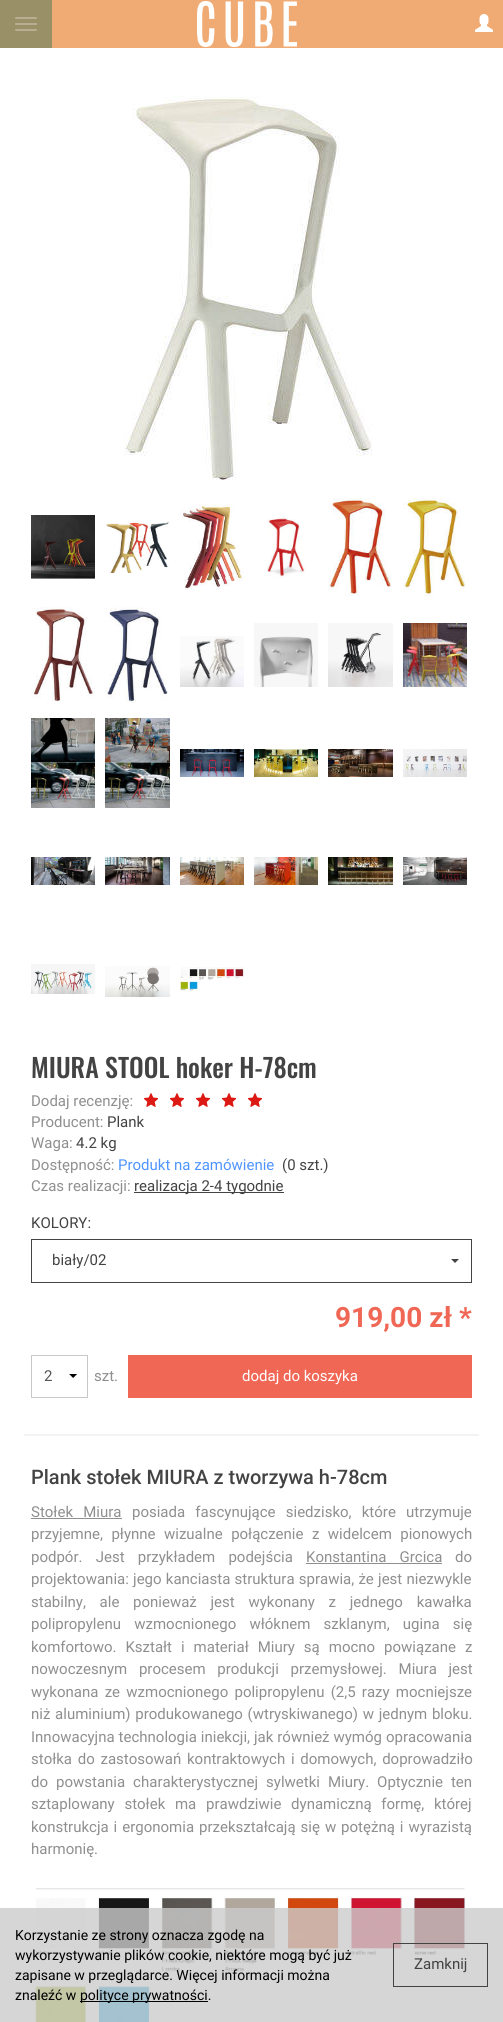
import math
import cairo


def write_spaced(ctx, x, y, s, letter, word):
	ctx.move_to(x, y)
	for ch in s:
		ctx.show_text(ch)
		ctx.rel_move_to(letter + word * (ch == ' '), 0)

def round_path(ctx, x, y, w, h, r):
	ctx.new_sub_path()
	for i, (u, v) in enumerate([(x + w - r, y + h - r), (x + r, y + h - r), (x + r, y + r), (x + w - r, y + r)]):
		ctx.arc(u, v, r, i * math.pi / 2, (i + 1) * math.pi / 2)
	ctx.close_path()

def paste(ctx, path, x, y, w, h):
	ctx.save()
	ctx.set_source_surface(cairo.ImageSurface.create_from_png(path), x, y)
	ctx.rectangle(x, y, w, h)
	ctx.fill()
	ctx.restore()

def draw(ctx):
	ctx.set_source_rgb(1, 1, 1)
	ctx.paint()
	ctx.set_source_rgb(0.941, 0.667, 0.455)
	ctx.rectangle(52, 0, 451, 48)
	ctx.fill()
	ctx.set_source_rgb(0.604, 0.565, 0.404)
	ctx.rectangle(0, 0, 52, 48)
	ctx.fill()
	ctx.set_source_rgb(0.714, 0.686, 0.569)
	round_path(ctx, 15, 17, 22, 2, 1)
	ctx.fill()
	round_path(ctx, 15, 23, 22, 2, 1)
	ctx.fill()
	round_path(ctx, 15, 29, 22, 2, 1)
	ctx.fill()
	paste(ctx, 'media/1.png', 197, 1, 100, 46)
	paste(ctx, 'media/2.png', 475, 14, 18, 18)
	paste(ctx, 'media/3.png', 124, 96, 248, 384)
	paste(ctx, 'media/4.png', 31, 515, 64, 64)
	paste(ctx, 'media/5.png', 105, 521, 64, 52)
	paste(ctx, 'media/6.png', 180, 504, 64, 86)
	paste(ctx, 'media/7.png', 267, 516, 39, 62)
	paste(ctx, 'media/8.png', 328, 498, 63, 98)
	paste(ctx, 'media/9.png', 403, 498, 62, 98)
	paste(ctx, 'media/10.png', 31, 607, 64, 95)
	paste(ctx, 'media/11.png', 105, 607, 63, 96)
	paste(ctx, 'media/12.png', 180, 636, 64, 51)
	paste(ctx, 'media/13.png', 254, 623, 64, 64)
	paste(ctx, 'media/14.png', 328, 623, 65, 64)
	paste(ctx, 'media/15.png', 403, 623, 64, 64)
	paste(ctx, 'media/16.png', 31, 718, 64, 90)
	paste(ctx, 'media/17.png', 105, 718, 65, 90)
	paste(ctx, 'media/18.png', 180, 749, 64, 28)
	paste(ctx, 'media/19.png', 254, 749, 64, 28)
	paste(ctx, 'media/20.png', 328, 749, 65, 28)
	paste(ctx, 'media/21.png', 403, 749, 64, 28)
	paste(ctx, 'media/22.png', 31, 857, 64, 28)
	paste(ctx, 'media/23.png', 105, 857, 65, 28)
	paste(ctx, 'media/24.png', 180, 857, 64, 28)
	paste(ctx, 'media/25.png', 254, 857, 64, 28)
	paste(ctx, 'media/26.png', 328, 857, 65, 28)
	paste(ctx, 'media/27.png', 403, 857, 64, 28)
	paste(ctx, 'media/28.png', 31, 964, 64, 30)
	paste(ctx, 'media/29.png', 105, 966, 65, 31)
	paste(ctx, 'media/30.png', 180, 967, 64, 24)
	ctx.select_font_face('Oswald Medium')
	ctx.set_font_size(26)
	ctx.set_source_rgb(0.263, 0.263, 0.263)
	ctx.move_to(31, 1078)
	ctx.show_text('MIURA STOOL hoker H-78cm')
	ctx.select_font_face('Roboto')
	ctx.set_font_size(15)
	ctx.set_source_rgb(0.561, 0.561, 0.561)
	ctx.move_to(31, 1106)
	ctx.show_text('Dodaj recenzję:')
	paste(ctx, 'media/31.png', 144, 1093, 14, 14)
	paste(ctx, 'media/31.png', 170, 1093, 14, 14)
	paste(ctx, 'media/31.png', 196, 1093, 14, 14)
	paste(ctx, 'media/31.png', 222, 1093, 14, 14)
	paste(ctx, 'media/31.png', 248, 1093, 14, 14)
	ctx.move_to(31, 1127)
	ctx.show_text('Producent:')
	ctx.set_source_rgb(0.263, 0.263, 0.263)
	ctx.move_to(107, 1127)
	ctx.show_text('Plank')
	ctx.set_source_rgb(0.561, 0.561, 0.561)
	ctx.move_to(31, 1148)
	ctx.show_text('Waga:')
	ctx.set_source_rgb(0.263, 0.263, 0.263)
	ctx.move_to(76, 1148)
	ctx.show_text('4.2 kg')
	ctx.set_source_rgb(0.561, 0.561, 0.561)
	ctx.move_to(31, 1170)
	ctx.show_text('Dostępność:')
	ctx.set_source_rgb(0.31, 0.584, 1)
	ctx.move_to(118, 1170)
	ctx.show_text('Produkt na zamówienie')
	ctx.set_source_rgb(0.263, 0.263, 0.263)
	ctx.move_to(282, 1170)
	ctx.show_text('(0 szt.)')
	ctx.set_source_rgb(0.561, 0.561, 0.561)
	ctx.move_to(31, 1191)
	ctx.show_text('Czas realizacji:')
	ctx.set_source_rgb(0.263, 0.263, 0.263)
	ctx.rectangle(134, 1192, 150, 1)
	ctx.fill()
	ctx.move_to(134, 1191)
	ctx.show_text('realizacja 2-4 tygodnie')
	ctx.move_to(31, 1228)
	ctx.show_text('KOLORY:')
	ctx.rectangle(31.5, 1239.5, 440, 43)
	ctx.set_line_width(1)
	ctx.stroke()
	ctx.move_to(52, 1265)
	ctx.show_text('biały/02')
	ctx.new_path()
	ctx.move_to(451, 1259)
	ctx.line_to(459, 1259)
	ctx.line_to(455, 1263)
	ctx.close_path()
	ctx.fill()
	ctx.select_font_face('Roboto', cairo.FONT_SLANT_NORMAL, cairo.FONT_WEIGHT_BOLD)
	ctx.set_font_size(28)
	ctx.set_source_rgb(0.941, 0.404, 0.333)
	ctx.move_to(335, 1327)
	ctx.show_text('919,00 zł *')
	paste(ctx, 'media/32.png', 69, 1374, 8, 4)
	ctx.rectangle(31.5, 1355.5, 56, 42)
	ctx.set_source_rgb(0.784, 0.784, 0.784)
	ctx.stroke()
	ctx.select_font_face('Roboto')
	ctx.set_font_size(15)
	ctx.set_source_rgb(0.333, 0.333, 0.333)
	ctx.move_to(44, 1381)
	ctx.show_text('2')
	ctx.set_source_rgb(0.561, 0.561, 0.561)
	ctx.move_to(94, 1381)
	ctx.show_text('szt.')
	ctx.set_source_rgb(0.941, 0.404, 0.333)
	ctx.rectangle(128, 1355, 344, 43)
	ctx.fill()
	ctx.set_source_rgb(1, 1, 1)
	ctx.move_to(242, 1381)
	ctx.show_text('dodaj do koszyka')
	ctx.set_source_rgb(0.953, 0.953, 0.949)
	ctx.rectangle(24, 1434, 455, 2)
	ctx.fill()
	ctx.select_font_face('Roboto Medium')
	ctx.set_font_size(20)
	ctx.set_source_rgb(0.263, 0.263, 0.263)
	ctx.move_to(31, 1484)
	ctx.show_text('Plank stołek MIURA z tworzywa h-78cm')
	ctx.select_font_face('Roboto')
	ctx.set_font_size(15)
	ctx.set_source_rgb(0.561, 0.561, 0.561)
	write_spaced(ctx, 31, 1517, 'Stołek Miura', 0, 6.5)
	ctx.rectangle(31, 1518, 91, 1)
	ctx.fill()
	write_spaced(ctx, 132, 1517, 'posiada fascynujące siedzisko, które utrzymuje', 0, 6.5)
	write_spaced(ctx, 31, 1539, 'przyjemne, płynne wizualne połączenie z widelcem pionowych', 0, 4.75)
	write_spaced(ctx, 31, 1562, 'podpór. Jest przykładem podejścia', 0, 9.5)
	write_spaced(ctx, 306, 1562, 'Konstantina Grcica', 0, 9.5)
	ctx.rectangle(306, 1563, 136, 1)
	ctx.fill()
	ctx.move_to(455, 1562)
	ctx.show_text('do')
	write_spaced(ctx, 31, 1584, 'projektowania: jego kanciasta struktura sprawia, że jest niezwykle', 0, 0.5)
	write_spaced(ctx, 31, 1607, 'stabilny, ale ponieważ jest wykonany z jednego kawałka', 0, 10)
	write_spaced(ctx, 31, 1629, 'polipropylenu wzmocnionego włóknem szklanym, ugina się', 0, 9.5)
	write_spaced(ctx, 31, 1652, 'komfortowo. Kształt i materiał Miury są mocno powiązane z', 0, 5.25)
	write_spaced(ctx, 31, 1674, 'nowoczesnym procesem produkcji przemysłowej. Miura jest', 0, 8)
	write_spaced(ctx, 31, 1697, 'wykonana ze wzmocnionego polipropylenu (2,5 razy mocniejsze', 0, 2.5)
	write_spaced(ctx, 31, 1719, 'niż aluminium) produkowanego (wtryskiwanego) w jednym bloku.', 0, 1)
	write_spaced(ctx, 31, 1742, 'Innowacyjna technologia iniekcji, jak również wymóg opracowania', 0, 0.25)
	write_spaced(ctx, 31, 1764, 'stołka do zastosowań kontraktowych i domowych, doprowadziło', 0, 2)
	write_spaced(ctx, 31, 1787, 'do powstania charakterystycznej sylwetki Miury. Optycznie ten', 0, 4.25)
	write_spaced(ctx, 31, 1809, 'sztaplowany stołek ma prawdziwie dynamiczną formę, której', 0, 6)
	write_spaced(ctx, 31, 1832, 'konstrukcja i ergonomia przekształcają się w potężną i wyrazistą', 0, 1.25)
	ctx.move_to(31, 1854)
	ctx.show_text('harmonię.')
	paste(ctx, 'media/33.png', 31, 1888, 434, 134)
	ctx.set_source_rgba(0.8, 0.8, 0.8, 0.8)
	ctx.rectangle(0, 1908, 503, 114)
	ctx.fill()
	ctx.set_font_size(14)
	ctx.set_source_rgb(0, 0, 0)
	for x, y, s in [
		(15, 1940, 'Korzystanie ze strony oznacza zgodę na'),
		(15, 1960, 'wykorzystywanie plików cookie, niektóre mogą być już'),
		(15, 1980, 'zapisane w przeglądarce. Więcej informacji można'),
		(15, 2000, 'znaleźć w'),
	]:
		ctx.move_to(x, y)
		ctx.show_text(s)
	ctx.rectangle(80, 2001, 128, 1)
	ctx.fill()
	ctx.move_to(80, 2000)
	ctx.show_text('polityce prywatności.')
	ctx.rectangle(393.5, 1943.5, 94, 43)
	ctx.set_source_rgb(0.263, 0.263, 0.263)
	ctx.stroke()
	ctx.set_font_size(15)
	ctx.move_to(414, 1969)
	ctx.show_text('Zamknij')


surface = cairo.ImageSurface(cairo.FORMAT_RGB24, 503, 2022)
ctx = cairo.Context(surface)
options = cairo.FontOptions()
options.set_hint_metrics(cairo.HINT_METRICS_OFF)
options.set_hint_style(cairo.HINT_STYLE_NONE)
ctx.set_font_options(options)
ctx.set_miter_limit(4)
draw(ctx)
surface.write_to_png('image.png')
